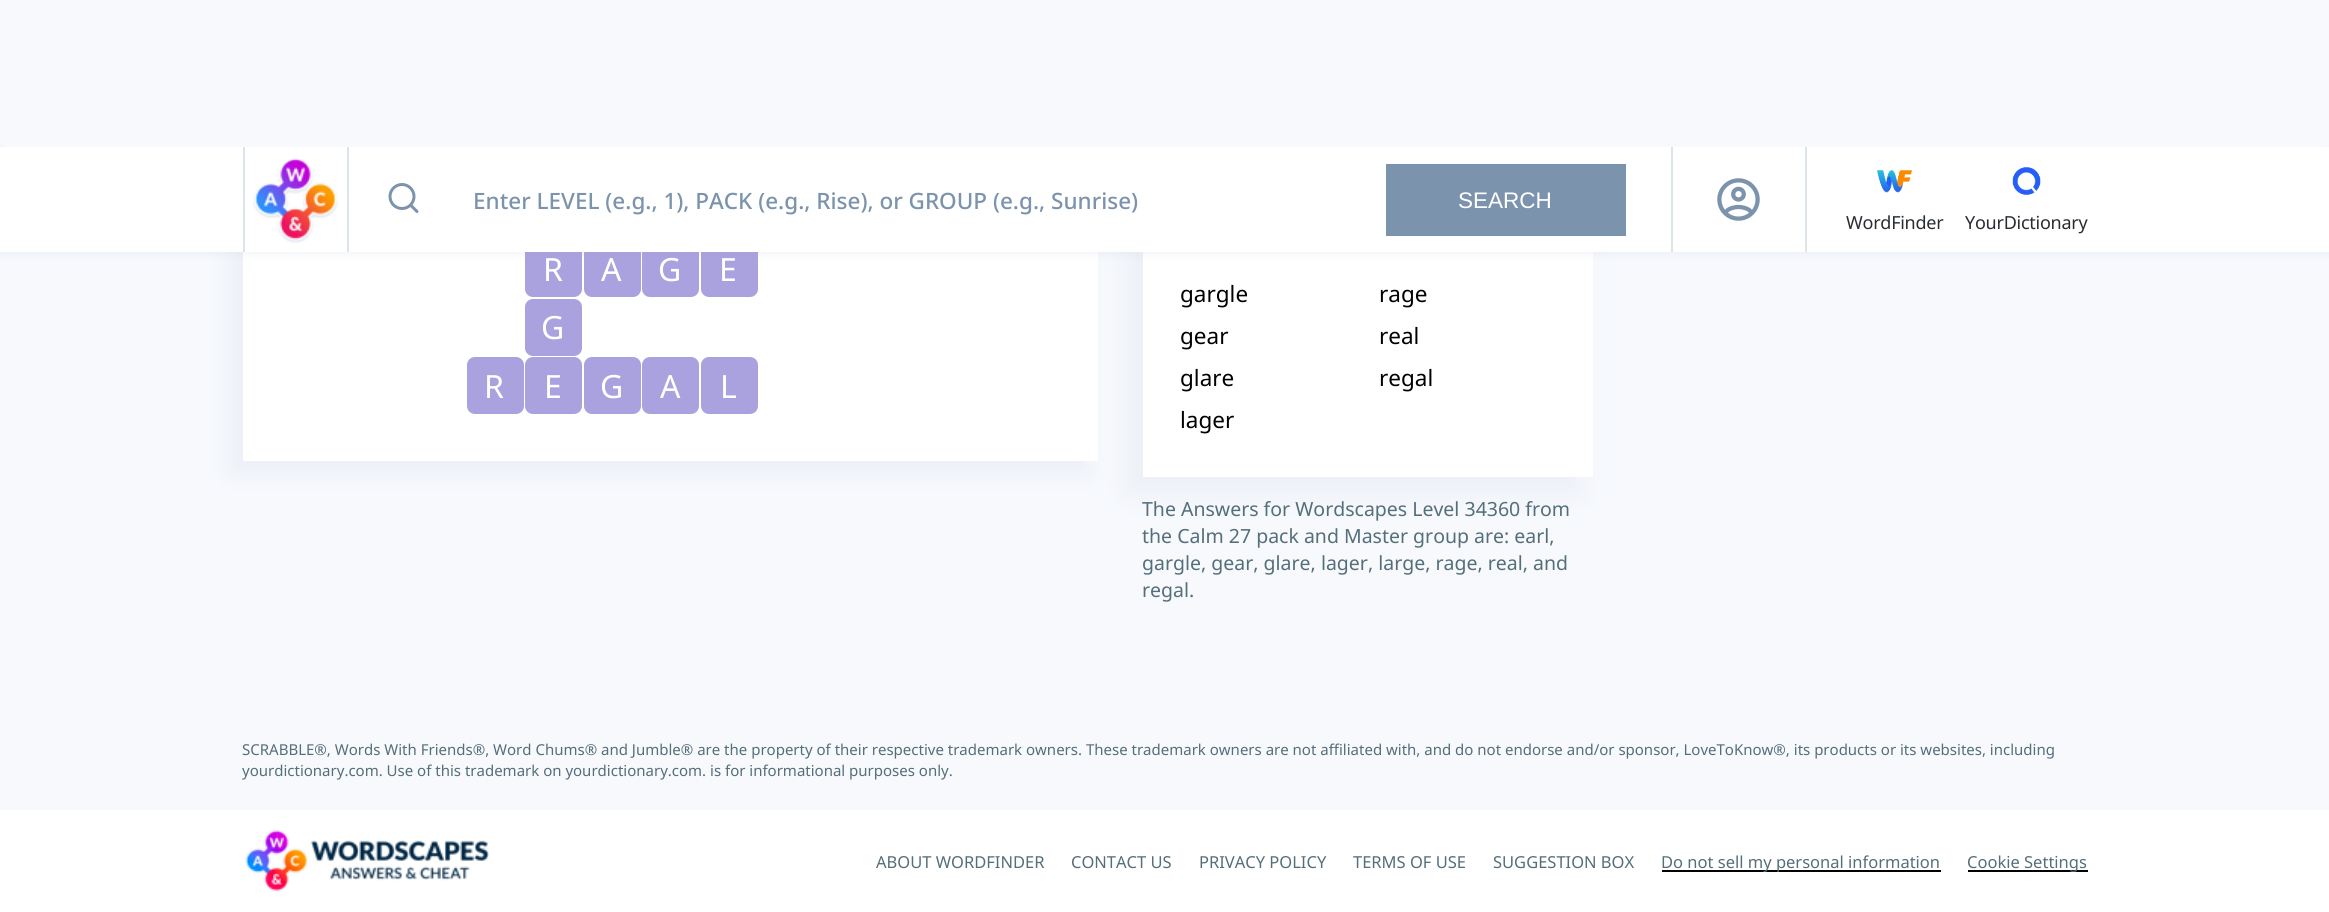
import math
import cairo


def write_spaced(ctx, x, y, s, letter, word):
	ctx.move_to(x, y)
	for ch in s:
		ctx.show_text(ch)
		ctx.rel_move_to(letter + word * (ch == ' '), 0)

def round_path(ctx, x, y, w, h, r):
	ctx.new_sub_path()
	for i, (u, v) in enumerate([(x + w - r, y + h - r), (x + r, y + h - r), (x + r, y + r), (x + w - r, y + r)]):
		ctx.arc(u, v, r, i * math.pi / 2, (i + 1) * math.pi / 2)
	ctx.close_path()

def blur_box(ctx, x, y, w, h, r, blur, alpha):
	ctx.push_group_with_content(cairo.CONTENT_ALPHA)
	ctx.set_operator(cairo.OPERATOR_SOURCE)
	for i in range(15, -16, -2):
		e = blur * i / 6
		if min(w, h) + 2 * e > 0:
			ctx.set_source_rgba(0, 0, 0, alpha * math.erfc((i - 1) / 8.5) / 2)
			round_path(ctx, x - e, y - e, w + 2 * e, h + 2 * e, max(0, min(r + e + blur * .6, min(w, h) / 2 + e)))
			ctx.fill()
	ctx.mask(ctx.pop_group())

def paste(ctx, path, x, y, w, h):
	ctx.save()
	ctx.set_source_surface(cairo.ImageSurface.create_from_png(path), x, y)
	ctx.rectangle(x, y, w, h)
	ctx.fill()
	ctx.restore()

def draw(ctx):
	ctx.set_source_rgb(0.965, 0.976, 0.992)
	ctx.paint()
	ctx.set_source_rgb(0.486, 0.576, 0.678)
	blur_box(ctx, 231, -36, 855, 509, 0, 12, 0.1)
	ctx.set_source_rgb(1, 1, 1)
	ctx.rectangle(243, 252, 855, 209)
	ctx.fill()
	ctx.set_source_rgb(0.667, 0.635, 0.875)
	round_path(ctx, 525, 240, 57, 57, 8)
	ctx.fill()
	round_path(ctx, 584, 240, 57, 57, 8)
	ctx.fill()
	round_path(ctx, 642, 240, 57, 57, 8)
	ctx.fill()
	round_path(ctx, 701, 240, 57, 57, 8)
	ctx.fill()
	ctx.set_source_rgb(0.486, 0.576, 0.678)
	blur_box(ctx, 1128, 143, 450, 349, 0, 15, 0.1)
	ctx.set_source_rgb(1, 1, 1)
	ctx.rectangle(1143, 252, 450, 225)
	ctx.fill()
	ctx.set_source_rgb(0.486, 0.576, 0.678)
	blur_box(ctx, 0, 149, 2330, 105, 0, 4, 0.1)
	ctx.set_source_rgb(0.965, 0.976, 0.992)
	ctx.rectangle(3, 0, 2324, 147)
	ctx.fill()
	ctx.set_source_rgb(1, 1, 1)
	ctx.rectangle(0, 147, 2329, 105)
	ctx.fill()
	ctx.set_source_rgb(0.871, 0.898, 0.914)
	ctx.rectangle(347, 147, 2, 105)
	ctx.rectangle(243, 147, 2, 105)
	ctx.fill()
	paste(ctx, 'media/1.png', 253, 157, 85, 86)
	ctx.arc(402, 196.5, 12, 0, 2 * math.pi)
	ctx.set_source_rgb(0.486, 0.576, 0.678)
	ctx.set_line_width(3)
	ctx.stroke()
	ctx.new_path()
	ctx.move_to(417, 211.5)
	ctx.line_to(411, 205.5)
	ctx.set_line_cap(cairo.LINE_CAP_ROUND)
	ctx.set_line_join(cairo.LINE_JOIN_ROUND)
	ctx.stroke()
	ctx.select_font_face('Noto Sans Medium')
	ctx.set_font_size(22.5)
	ctx.move_to(473, 209)
	ctx.show_text('Enter LEVEL (e.g., 1), PACK (e.g., Rise), or GROUP (e.g., Sunrise)')
	ctx.rectangle(1386, 164, 240, 72)
	ctx.fill()
	ctx.select_font_face('Liberation Sans')
	ctx.set_source_rgb(1, 1, 1)
	ctx.move_to(1458, 208)
	ctx.show_text('SEARCH')
	ctx.set_source_rgb(0.871, 0.898, 0.914)
	ctx.rectangle(1671, 147, 2, 105)
	ctx.fill()
	paste(ctx, 'media/2.png', 1717, 178, 43, 43)
	ctx.rectangle(1805, 147, 2, 105)
	ctx.fill()
	paste(ctx, 'media/3.png', 1877, 170, 35, 23)
	ctx.select_font_face('Noto Sans')
	ctx.set_font_size(18)
	ctx.set_source_rgb(0.157, 0.176, 0.196)
	write_spaced(ctx, 1846, 229, 'WordFinder', -0.25, 0)
	paste(ctx, 'media/4.png', 2012, 167, 29, 29)
	write_spaced(ctx, 1965, 229, 'YourDictionary', -0.25, 0)
	ctx.set_font_size(32)
	ctx.set_source_rgb(1, 1, 1)
	for x, y, s in [
		(543, 281, 'R'),
		(601, 281, 'A'),
		(658, 281, 'G'),
		(719, 281, 'E'),
	]:
		ctx.move_to(x, y)
		ctx.show_text(s)
	ctx.set_source_rgb(0.667, 0.635, 0.875)
	round_path(ctx, 525, 299, 57, 57, 8)
	ctx.fill()
	ctx.set_source_rgb(1, 1, 1)
	ctx.move_to(541, 339)
	ctx.show_text('G')
	ctx.set_source_rgb(0.667, 0.635, 0.875)
	round_path(ctx, 467, 357, 57, 57, 8)
	ctx.fill()
	ctx.set_source_rgb(1, 1, 1)
	ctx.move_to(484, 398)
	ctx.show_text('R')
	ctx.set_source_rgb(0.667, 0.635, 0.875)
	round_path(ctx, 525, 357, 57, 57, 8)
	ctx.fill()
	ctx.set_source_rgb(1, 1, 1)
	ctx.move_to(544, 398)
	ctx.show_text('E')
	ctx.set_source_rgb(0.667, 0.635, 0.875)
	round_path(ctx, 584, 357, 57, 57, 8)
	ctx.fill()
	ctx.set_source_rgb(1, 1, 1)
	ctx.move_to(600, 398)
	ctx.show_text('G')
	ctx.set_source_rgb(0.667, 0.635, 0.875)
	round_path(ctx, 642, 357, 57, 57, 8)
	ctx.fill()
	ctx.set_source_rgb(1, 1, 1)
	ctx.move_to(660, 398)
	ctx.show_text('A')
	ctx.set_source_rgb(0.667, 0.635, 0.875)
	round_path(ctx, 701, 357, 57, 57, 8)
	ctx.fill()
	ctx.set_source_rgb(1, 1, 1)
	ctx.move_to(720, 398)
	ctx.show_text('L')
	ctx.set_font_size(22.5)
	ctx.set_source_rgb(0, 0, 0)
	for x, y, s in [
		(1180, 302, 'gargle'),
		(1379, 302, 'rage'),
		(1180, 344, 'gear'),
		(1379, 344, 'real'),
		(1180, 386, 'glare'),
		(1379, 386, 'regal'),
		(1180, 428, 'lager'),
	]:
		ctx.move_to(x, y)
		ctx.show_text(s)
	ctx.set_font_size(19.5)
	ctx.set_source_rgb(0.329, 0.431, 0.478)
	for x, y, s in [
		(1142, 516, 'The Answers for Wordscapes Level 34360 from'),
		(1142, 543, 'the Calm 27 pack and Master group are: earl,'),
		(1142, 570, 'gargle, gear, glare, lager, large, rage, real, and'),
		(1142, 597, 'regal.'),
	]:
		ctx.move_to(x, y)
		ctx.show_text(s)
	ctx.set_source_rgb(1, 1, 1)
	ctx.rectangle(0, 810, 2329, 102)
	ctx.fill()
	ctx.set_font_size(15)
	ctx.set_source_rgb(0.329, 0.431, 0.478)
	ctx.move_to(242, 755)
	ctx.show_text('SCRABBLE®, Words With Friends®, Word Chums® and Jumble® are the property of their respective trademark owners. These trademark owners are not affiliated with, and do not endorse and/or sponsor, LoveToKnow®, its products or its websites, including')
	ctx.move_to(242, 776)
	ctx.show_text('yourdictionary.com. Use of this trademark on yourdictionary.com. is for informational purposes only.')
	paste(ctx, 'media/5.png', 245, 829, 244, 63)
	ctx.set_font_size(16.5)
	for x, y, s in [
		(876, 868, 'ABOUT WORDFINDER'),
		(1071, 868, 'CONTACT US'),
		(1199, 868, 'PRIVACY POLICY'),
		(1353, 868, 'TERMS OF USE'),
		(1493, 868, 'SUGGESTION BOX'),
	]:
		ctx.move_to(x, y)
		ctx.show_text(s)
	ctx.set_source_rgb(0, 0, 0)
	ctx.rectangle(1662, 870, 279, 2)
	ctx.fill()
	ctx.set_source_rgb(0.329, 0.431, 0.478)
	ctx.move_to(1661, 868)
	ctx.show_text('Do not sell my personal information')
	ctx.set_source_rgb(0, 0, 0)
	ctx.rectangle(1968, 870, 120, 2)
	ctx.fill()
	ctx.set_source_rgb(0.329, 0.431, 0.478)
	ctx.move_to(1967, 868)
	ctx.show_text('Cookie Settings')


surface = cairo.ImageSurface(cairo.FORMAT_RGB24, 2329, 912)
ctx = cairo.Context(surface)
options = cairo.FontOptions()
options.set_hint_metrics(cairo.HINT_METRICS_OFF)
options.set_hint_style(cairo.HINT_STYLE_NONE)
ctx.set_font_options(options)
ctx.set_miter_limit(4)
draw(ctx)
surface.write_to_png('image.png')
